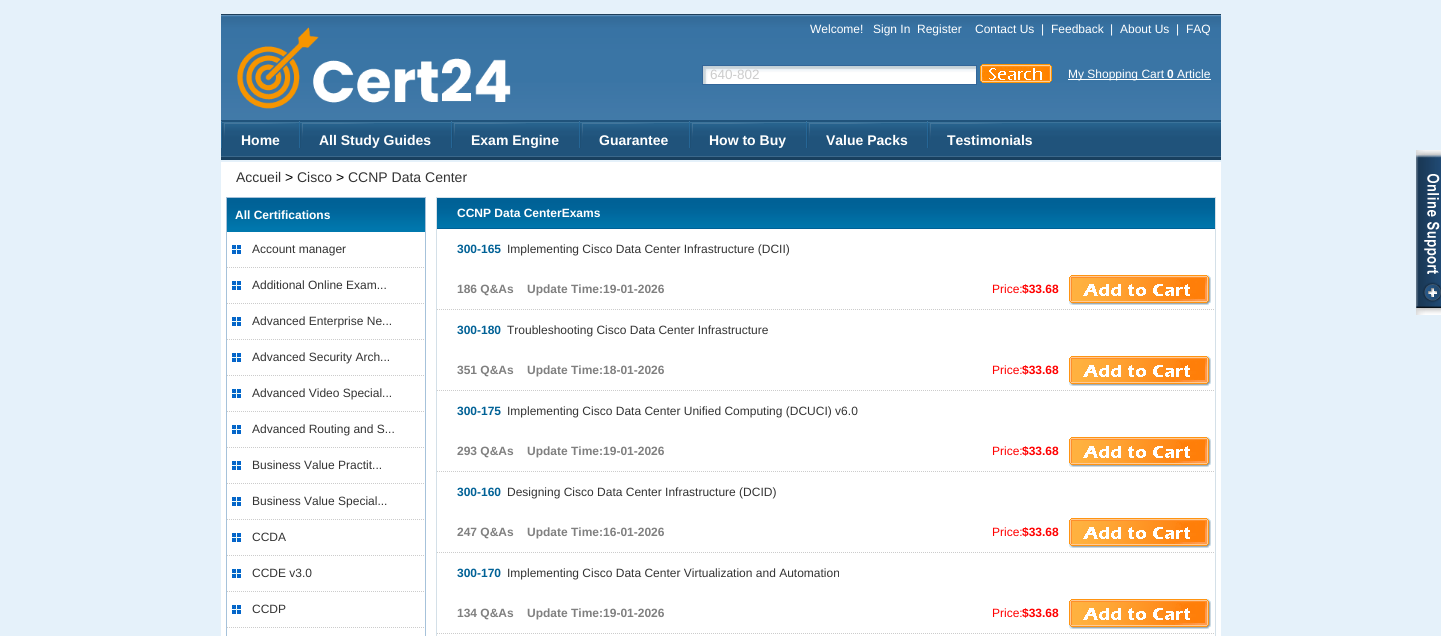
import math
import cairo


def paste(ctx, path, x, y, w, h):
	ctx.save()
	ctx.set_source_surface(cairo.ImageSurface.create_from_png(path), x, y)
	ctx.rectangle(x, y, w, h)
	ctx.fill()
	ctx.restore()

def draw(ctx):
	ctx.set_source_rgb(0.898, 0.945, 0.98)
	ctx.paint()
	paste(ctx, 'media/1.png', 221, 14, 1000, 106)
	paste(ctx, 'media/2.png', 237, 27, 274, 82)
	ctx.select_font_face('Liberation Sans')
	ctx.set_font_size(12)
	ctx.set_source_rgb(1, 1, 1)
	for x, y, s in [
		(810, 33, 'Welcome!'),
		(873, 33, 'Sign In'),
		(917, 33, 'Register'),
		(975, 33, 'Contact Us'),
		(1041, 33, '|'),
		(1051, 33, 'Feedback'),
		(1110, 33, '|'),
		(1120, 33, 'About Us'),
		(1176, 33, '|'),
		(1186, 33, 'FAQ'),
	]:
		ctx.move_to(x, y)
		ctx.show_text(s)
	paste(ctx, 'media/3.png', 703, 66, 273, 18)
	ctx.rectangle(702.5, 65.5, 274, 19)
	ctx.set_source_rgb(0.2, 0.4, 0.6)
	ctx.set_line_width(1)
	ctx.stroke()
	ctx.set_font_size(13.5)
	ctx.set_source_rgb(0.8, 0.8, 0.8)
	ctx.move_to(710, 79)
	ctx.show_text('640-802')
	paste(ctx, 'media/4.png', 980, 64, 72, 19)
	ctx.set_source_rgb(1, 1, 1)
	ctx.rectangle(1068, 79, 143, 1)
	ctx.fill()
	ctx.set_font_size(12)
	ctx.move_to(1068, 78)
	ctx.show_text('My Shopping Cart')
	ctx.select_font_face('Liberation Sans', cairo.FONT_SLANT_NORMAL, cairo.FONT_WEIGHT_BOLD)
	ctx.move_to(1167, 78)
	ctx.show_text('0')
	ctx.select_font_face('Liberation Sans')
	ctx.move_to(1177, 78)
	ctx.show_text('Article')
	paste(ctx, 'media/5.png', 221, 120, 1000, 40)
	paste(ctx, 'media/6.png', 221, 121, 75, 27)
	ctx.select_font_face('Liberation Sans', cairo.FONT_SLANT_NORMAL, cairo.FONT_WEIGHT_BOLD)
	ctx.set_font_size(14)
	ctx.move_to(241, 145)
	ctx.show_text('Home')
	paste(ctx, 'media/6.png', 299, 121, 75, 27)
	ctx.move_to(319, 145)
	ctx.show_text('All Study Guides')
	paste(ctx, 'media/6.png', 451, 121, 75, 27)
	ctx.move_to(471, 145)
	ctx.show_text('Exam Engine')
	paste(ctx, 'media/6.png', 579, 121, 75, 27)
	ctx.move_to(599, 145)
	ctx.show_text('Guarantee')
	paste(ctx, 'media/6.png', 689, 121, 75, 27)
	ctx.move_to(709, 145)
	ctx.show_text('How to Buy')
	paste(ctx, 'media/6.png', 806, 121, 75, 27)
	ctx.move_to(826, 145)
	ctx.show_text('Value Packs')
	paste(ctx, 'media/6.png', 927, 121, 75, 27)
	ctx.move_to(947, 145)
	ctx.show_text('Testimonials')
	ctx.rectangle(221, 162, 1000, 474)
	ctx.fill()
	ctx.select_font_face('Liberation Sans')
	ctx.set_source_rgb(0.2, 0.2, 0.2)
	ctx.move_to(236, 182)
	ctx.show_text('Accueil')
	ctx.set_source_rgb(0, 0, 0)
	ctx.move_to(285, 182)
	ctx.show_text('>')
	ctx.set_source_rgb(0.2, 0.2, 0.2)
	ctx.move_to(297, 182)
	ctx.show_text('Cisco')
	ctx.set_source_rgb(0, 0, 0)
	ctx.move_to(336, 182)
	ctx.show_text('>')
	ctx.set_source_rgb(0.2, 0.2, 0.2)
	ctx.move_to(348, 182)
	ctx.show_text('CCNP Data Center')
	paste(ctx, 'media/7.png', 1416, 150, 25, 165)
	ctx.rectangle(226.5, 197.5, 199, 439)
	ctx.set_source_rgb(0.651, 0.761, 0.855)
	ctx.stroke()
	paste(ctx, 'media/8.png', 227, 198, 198, 34)
	ctx.select_font_face('Liberation Sans', cairo.FONT_SLANT_NORMAL, cairo.FONT_WEIGHT_BOLD)
	ctx.set_font_size(12)
	ctx.set_source_rgb(1, 1, 1)
	ctx.move_to(235, 219)
	ctx.show_text('All Certifications')
	paste(ctx, 'media/9.png', 232, 245, 9, 9)
	ctx.new_path()
	ctx.move_to(227, 267.5)
	ctx.line_to(425, 267.5)
	ctx.set_source_rgb(0.8, 0.8, 0.8)
	ctx.set_dash([1, 1])
	ctx.stroke()
	ctx.select_font_face('Liberation Sans')
	ctx.set_source_rgb(0.2, 0.2, 0.2)
	ctx.move_to(252, 253)
	ctx.show_text('Account manager')
	paste(ctx, 'media/9.png', 232, 281, 9, 9)
	ctx.new_path()
	ctx.move_to(227, 303.5)
	ctx.line_to(425, 303.5)
	ctx.set_source_rgb(0.8, 0.8, 0.8)
	ctx.stroke()
	ctx.set_source_rgb(0.2, 0.2, 0.2)
	ctx.move_to(252, 289)
	ctx.show_text('Additional Online Exam...')
	paste(ctx, 'media/9.png', 232, 317, 9, 9)
	ctx.new_path()
	ctx.move_to(227, 339.5)
	ctx.line_to(425, 339.5)
	ctx.set_source_rgb(0.8, 0.8, 0.8)
	ctx.stroke()
	ctx.set_source_rgb(0.2, 0.2, 0.2)
	ctx.move_to(252, 325)
	ctx.show_text('Advanced Enterprise Ne...')
	paste(ctx, 'media/9.png', 232, 353, 9, 9)
	ctx.new_path()
	ctx.move_to(227, 375.5)
	ctx.line_to(425, 375.5)
	ctx.set_source_rgb(0.8, 0.8, 0.8)
	ctx.stroke()
	ctx.set_source_rgb(0.2, 0.2, 0.2)
	ctx.move_to(252, 361)
	ctx.show_text('Advanced Security Arch...')
	paste(ctx, 'media/9.png', 232, 389, 9, 9)
	ctx.new_path()
	ctx.move_to(227, 411.5)
	ctx.line_to(425, 411.5)
	ctx.set_source_rgb(0.8, 0.8, 0.8)
	ctx.stroke()
	ctx.set_source_rgb(0.2, 0.2, 0.2)
	ctx.move_to(252, 397)
	ctx.show_text('Advanced Video Special...')
	paste(ctx, 'media/9.png', 232, 425, 9, 9)
	ctx.new_path()
	ctx.move_to(227, 447.5)
	ctx.line_to(425, 447.5)
	ctx.set_source_rgb(0.8, 0.8, 0.8)
	ctx.stroke()
	ctx.set_source_rgb(0.2, 0.2, 0.2)
	ctx.move_to(252, 433)
	ctx.show_text('Advanced Routing and S...')
	paste(ctx, 'media/9.png', 232, 461, 9, 9)
	ctx.new_path()
	ctx.move_to(227, 483.5)
	ctx.line_to(425, 483.5)
	ctx.set_source_rgb(0.8, 0.8, 0.8)
	ctx.stroke()
	ctx.set_source_rgb(0.2, 0.2, 0.2)
	ctx.move_to(252, 469)
	ctx.show_text('Business Value Practit...')
	paste(ctx, 'media/9.png', 232, 497, 9, 9)
	ctx.new_path()
	ctx.move_to(227, 519.5)
	ctx.line_to(425, 519.5)
	ctx.set_source_rgb(0.8, 0.8, 0.8)
	ctx.stroke()
	ctx.set_source_rgb(0.2, 0.2, 0.2)
	ctx.move_to(252, 505)
	ctx.show_text('Business Value Special...')
	paste(ctx, 'media/9.png', 232, 533, 9, 9)
	ctx.new_path()
	ctx.move_to(227, 555.5)
	ctx.line_to(425, 555.5)
	ctx.set_source_rgb(0.8, 0.8, 0.8)
	ctx.stroke()
	ctx.set_source_rgb(0.2, 0.2, 0.2)
	ctx.move_to(252, 541)
	ctx.show_text('CCDA')
	paste(ctx, 'media/9.png', 232, 569, 9, 9)
	ctx.new_path()
	ctx.move_to(227, 591.5)
	ctx.line_to(425, 591.5)
	ctx.set_source_rgb(0.8, 0.8, 0.8)
	ctx.stroke()
	ctx.set_source_rgb(0.2, 0.2, 0.2)
	ctx.move_to(252, 577)
	ctx.show_text('CCDE v3.0')
	paste(ctx, 'media/9.png', 232, 605, 9, 9)
	ctx.new_path()
	ctx.move_to(227, 627.5)
	ctx.line_to(425, 627.5)
	ctx.set_source_rgb(0.8, 0.8, 0.8)
	ctx.stroke()
	ctx.set_source_rgb(0.2, 0.2, 0.2)
	ctx.move_to(252, 613)
	ctx.show_text('CCDP')
	ctx.rectangle(436.5, 197.5, 779, 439)
	ctx.set_source_rgb(0.831, 0.878, 0.91)
	ctx.set_dash([])
	ctx.stroke()
	paste(ctx, 'media/10.png', 437, 198, 778, 30)
	ctx.set_source_rgb(0, 0.38, 0.588)
	ctx.rectangle(437, 228, 778, 1)
	ctx.fill()
	ctx.select_font_face('Liberation Sans', cairo.FONT_SLANT_NORMAL, cairo.FONT_WEIGHT_BOLD)
	ctx.set_source_rgb(1, 1, 1)
	ctx.move_to(457, 217)
	ctx.show_text('CCNP Data CenterExams')
	ctx.new_path()
	ctx.move_to(437, 309.5)
	ctx.line_to(1215, 309.5)
	ctx.set_source_rgb(0.8, 0.8, 0.8)
	ctx.set_dash([1, 1])
	ctx.stroke()
	ctx.set_source_rgb(0, 0.38, 0.588)
	ctx.move_to(457, 253)
	ctx.show_text('300-165')
	ctx.select_font_face('Liberation Sans')
	ctx.set_source_rgb(0.2, 0.2, 0.2)
	ctx.move_to(507, 253)
	ctx.show_text('Implementing Cisco Data Center Infrastructure (DCII)')
	ctx.select_font_face('Liberation Sans', cairo.FONT_SLANT_NORMAL, cairo.FONT_WEIGHT_BOLD)
	ctx.set_source_rgb(0.502, 0.502, 0.502)
	ctx.move_to(457, 293)
	ctx.show_text('186 Q&As    Update Time:19-01-2026')
	ctx.select_font_face('Liberation Sans')
	ctx.set_source_rgb(1, 0, 0)
	ctx.move_to(992, 293)
	ctx.show_text('Price:')
	ctx.select_font_face('Liberation Sans', cairo.FONT_SLANT_NORMAL, cairo.FONT_WEIGHT_BOLD)
	ctx.move_to(1022, 293)
	ctx.show_text('$33.68')
	paste(ctx, 'media/11.png', 1069, 275, 142, 30)
	ctx.new_path()
	ctx.move_to(437, 390.5)
	ctx.line_to(1215, 390.5)
	ctx.set_source_rgb(0.8, 0.8, 0.8)
	ctx.stroke()
	ctx.set_source_rgb(0, 0.38, 0.588)
	ctx.move_to(457, 334)
	ctx.show_text('300-180')
	ctx.select_font_face('Liberation Sans')
	ctx.set_source_rgb(0.2, 0.2, 0.2)
	ctx.move_to(507, 334)
	ctx.show_text('Troubleshooting Cisco Data Center Infrastructure')
	ctx.select_font_face('Liberation Sans', cairo.FONT_SLANT_NORMAL, cairo.FONT_WEIGHT_BOLD)
	ctx.set_source_rgb(0.502, 0.502, 0.502)
	ctx.move_to(457, 374)
	ctx.show_text('351 Q&As    Update Time:18-01-2026')
	ctx.select_font_face('Liberation Sans')
	ctx.set_source_rgb(1, 0, 0)
	ctx.move_to(992, 374)
	ctx.show_text('Price:')
	ctx.select_font_face('Liberation Sans', cairo.FONT_SLANT_NORMAL, cairo.FONT_WEIGHT_BOLD)
	ctx.move_to(1022, 374)
	ctx.show_text('$33.68')
	paste(ctx, 'media/11.png', 1069, 356, 142, 30)
	ctx.new_path()
	ctx.move_to(437, 471.5)
	ctx.line_to(1215, 471.5)
	ctx.set_source_rgb(0.8, 0.8, 0.8)
	ctx.stroke()
	ctx.set_source_rgb(0, 0.38, 0.588)
	ctx.move_to(457, 415)
	ctx.show_text('300-175')
	ctx.select_font_face('Liberation Sans')
	ctx.set_source_rgb(0.2, 0.2, 0.2)
	ctx.move_to(507, 415)
	ctx.show_text('Implementing Cisco Data Center Unified Computing (DCUCI) v6.0')
	ctx.select_font_face('Liberation Sans', cairo.FONT_SLANT_NORMAL, cairo.FONT_WEIGHT_BOLD)
	ctx.set_source_rgb(0.502, 0.502, 0.502)
	ctx.move_to(457, 455)
	ctx.show_text('293 Q&As    Update Time:19-01-2026')
	ctx.select_font_face('Liberation Sans')
	ctx.set_source_rgb(1, 0, 0)
	ctx.move_to(992, 455)
	ctx.show_text('Price:')
	ctx.select_font_face('Liberation Sans', cairo.FONT_SLANT_NORMAL, cairo.FONT_WEIGHT_BOLD)
	ctx.move_to(1022, 455)
	ctx.show_text('$33.68')
	paste(ctx, 'media/11.png', 1069, 437, 142, 30)
	ctx.new_path()
	ctx.move_to(437, 552.5)
	ctx.line_to(1215, 552.5)
	ctx.set_source_rgb(0.8, 0.8, 0.8)
	ctx.stroke()
	ctx.set_source_rgb(0, 0.38, 0.588)
	ctx.move_to(457, 496)
	ctx.show_text('300-160')
	ctx.select_font_face('Liberation Sans')
	ctx.set_source_rgb(0.2, 0.2, 0.2)
	ctx.move_to(507, 496)
	ctx.show_text('Designing Cisco Data Center Infrastructure (DCID)')
	ctx.select_font_face('Liberation Sans', cairo.FONT_SLANT_NORMAL, cairo.FONT_WEIGHT_BOLD)
	ctx.set_source_rgb(0.502, 0.502, 0.502)
	ctx.move_to(457, 536)
	ctx.show_text('247 Q&As    Update Time:16-01-2026')
	ctx.select_font_face('Liberation Sans')
	ctx.set_source_rgb(1, 0, 0)
	ctx.move_to(992, 536)
	ctx.show_text('Price:')
	ctx.select_font_face('Liberation Sans', cairo.FONT_SLANT_NORMAL, cairo.FONT_WEIGHT_BOLD)
	ctx.move_to(1022, 536)
	ctx.show_text('$33.68')
	paste(ctx, 'media/11.png', 1069, 518, 142, 30)
	ctx.new_path()
	ctx.move_to(437, 633.5)
	ctx.line_to(1215, 633.5)
	ctx.set_source_rgb(0.8, 0.8, 0.8)
	ctx.stroke()
	ctx.set_source_rgb(0, 0.38, 0.588)
	ctx.move_to(457, 577)
	ctx.show_text('300-170')
	ctx.select_font_face('Liberation Sans')
	ctx.set_source_rgb(0.2, 0.2, 0.2)
	ctx.move_to(507, 577)
	ctx.show_text('Implementing Cisco Data Center Virtualization and Automation')
	ctx.select_font_face('Liberation Sans', cairo.FONT_SLANT_NORMAL, cairo.FONT_WEIGHT_BOLD)
	ctx.set_source_rgb(0.502, 0.502, 0.502)
	ctx.move_to(457, 617)
	ctx.show_text('134 Q&As    Update Time:19-01-2026')
	ctx.select_font_face('Liberation Sans')
	ctx.set_source_rgb(1, 0, 0)
	ctx.move_to(992, 617)
	ctx.show_text('Price:')
	ctx.select_font_face('Liberation Sans', cairo.FONT_SLANT_NORMAL, cairo.FONT_WEIGHT_BOLD)
	ctx.move_to(1022, 617)
	ctx.show_text('$33.68')
	paste(ctx, 'media/11.png', 1069, 599, 142, 30)


surface = cairo.ImageSurface(cairo.FORMAT_RGB24, 1441, 636)
ctx = cairo.Context(surface)
options = cairo.FontOptions()
options.set_hint_metrics(cairo.HINT_METRICS_OFF)
options.set_hint_style(cairo.HINT_STYLE_NONE)
ctx.set_font_options(options)
ctx.set_miter_limit(4)
draw(ctx)
surface.write_to_png('image.png')
